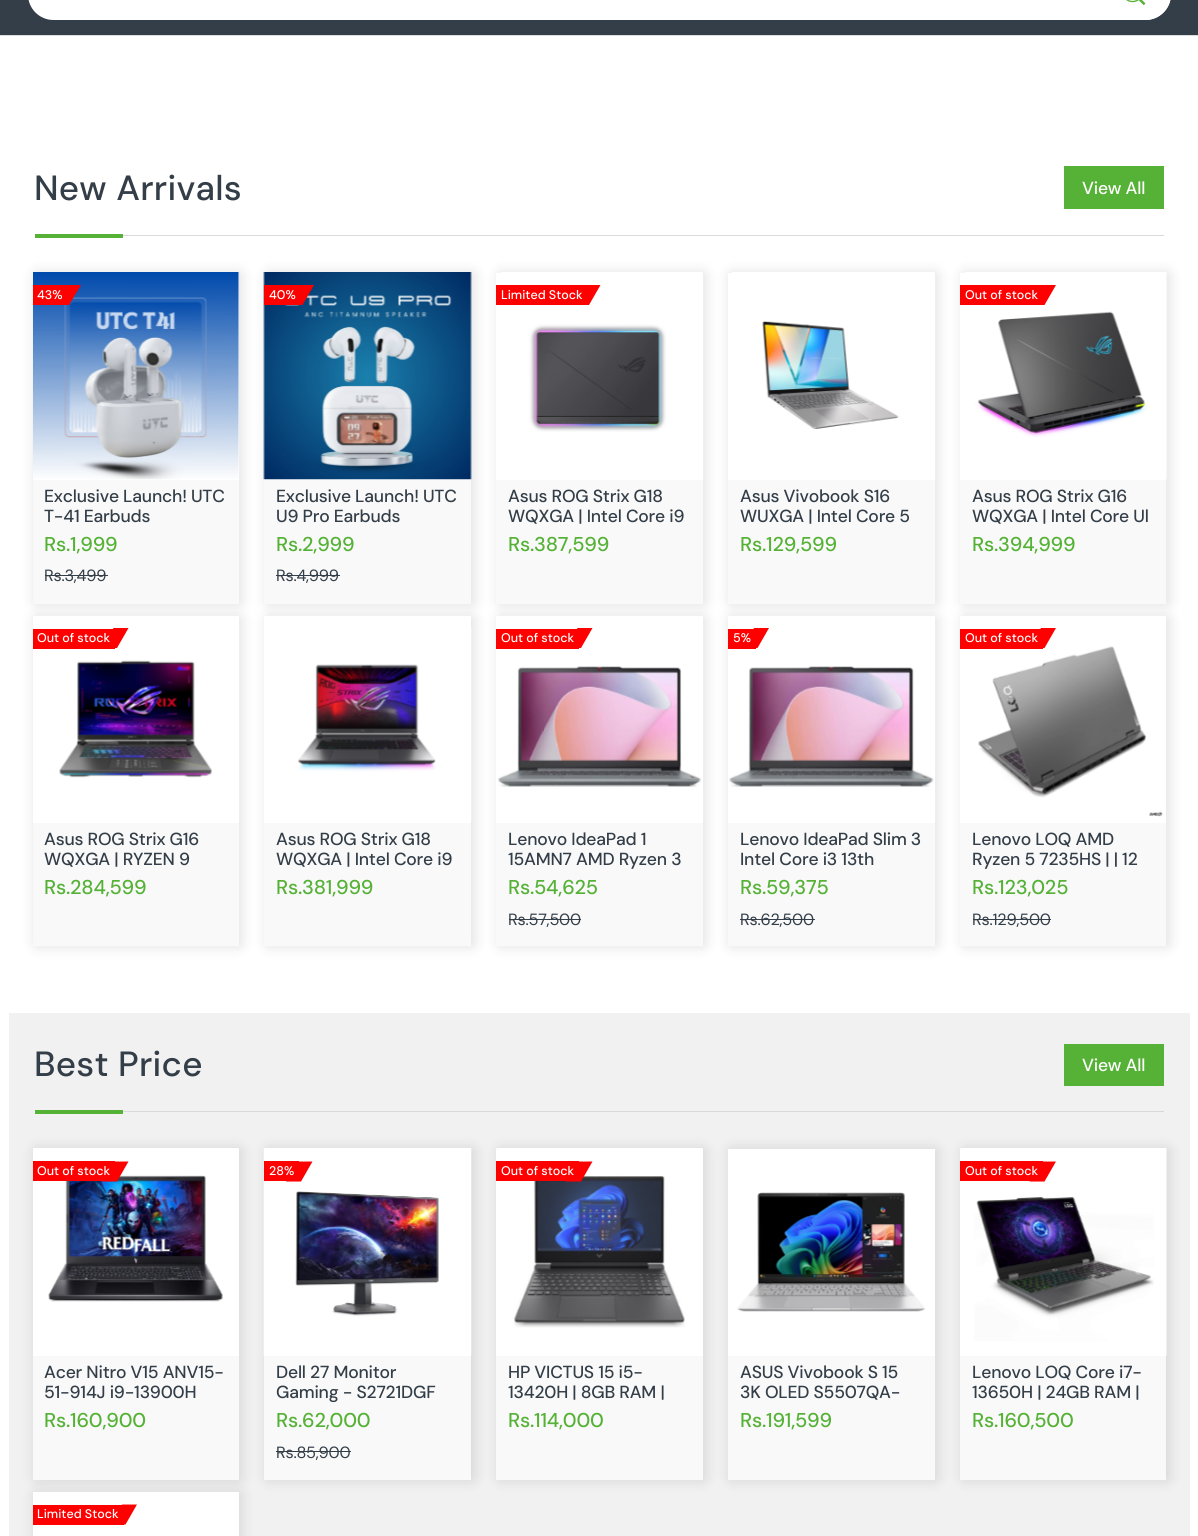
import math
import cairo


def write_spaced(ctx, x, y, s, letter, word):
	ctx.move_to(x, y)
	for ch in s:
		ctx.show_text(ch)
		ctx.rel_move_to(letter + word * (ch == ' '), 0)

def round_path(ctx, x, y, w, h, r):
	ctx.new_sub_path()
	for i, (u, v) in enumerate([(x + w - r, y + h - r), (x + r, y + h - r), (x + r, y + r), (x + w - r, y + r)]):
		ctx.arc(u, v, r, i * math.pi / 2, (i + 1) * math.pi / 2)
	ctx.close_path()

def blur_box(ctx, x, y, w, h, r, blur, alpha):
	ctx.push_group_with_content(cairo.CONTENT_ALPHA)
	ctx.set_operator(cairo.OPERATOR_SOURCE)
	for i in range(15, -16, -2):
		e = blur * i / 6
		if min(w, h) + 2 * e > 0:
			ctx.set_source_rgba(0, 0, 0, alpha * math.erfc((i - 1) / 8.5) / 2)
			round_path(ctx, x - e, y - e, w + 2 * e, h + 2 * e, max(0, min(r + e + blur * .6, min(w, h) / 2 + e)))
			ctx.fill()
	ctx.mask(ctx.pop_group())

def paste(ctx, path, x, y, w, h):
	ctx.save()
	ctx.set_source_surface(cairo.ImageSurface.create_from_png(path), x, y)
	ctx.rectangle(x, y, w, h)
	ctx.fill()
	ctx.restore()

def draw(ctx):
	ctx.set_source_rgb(1, 1, 1)
	ctx.paint()
	ctx.set_source_rgb(0.2, 0.243, 0.282)
	ctx.rectangle(0, 0, 1198, 35)
	ctx.fill()
	ctx.set_source_rgb(0.867, 0.867, 0.867)
	ctx.rectangle(0, 35, 1198, 1)
	ctx.fill()
	ctx.set_source_rgb(1, 1, 1)
	round_path(ctx, 29.5, -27.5, 1140, 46, 24)
	ctx.fill_preserve()
	ctx.set_line_width(3)
	ctx.stroke()
	ctx.new_path()
	ctx.move_to(1096, -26)
	ctx.line_to(1145.5, -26)
	ctx.curve_to(1159.5, -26, 1171, -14.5, 1171, -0.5)
	ctx.line_to(1171, -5.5)
	ctx.curve_to(1171, 8.5, 1159.5, 20, 1145.5, 20)
	ctx.line_to(1096, 20)
	ctx.close_path()
	ctx.fill()
	paste(ctx, 'media/1.png', 1126, 0, 20, 6)
	ctx.set_source_rgb(0.851, 0.851, 0.851)
	ctx.rectangle(123, 235, 1041, 1)
	ctx.fill()
	ctx.select_font_face('DM Sans Medium')
	ctx.set_font_size(35)
	ctx.set_source_rgb(0.2, 0.243, 0.282)
	write_spaced(ctx, 34, 200, 'New Arrivals', 0.25, 0)
	ctx.set_source_rgb(0.337, 0.698, 0.216)
	ctx.rectangle(1064, 166, 100, 43)
	ctx.fill()
	ctx.set_font_size(17.5)
	ctx.set_source_rgb(1, 1, 1)
	write_spaced(ctx, 1082, 194, 'View All', -0.2, 0)
	ctx.set_source_rgb(0.337, 0.698, 0.216)
	ctx.rectangle(35, 234, 88, 4)
	ctx.fill()
	ctx.set_source_rgb(0, 0, 0)
	blur_box(ctx, 36, 274, 204, 329, 0, 7.5, 0.14)
	ctx.set_source_rgb(0.976, 0.976, 0.976)
	ctx.rectangle(33, 480, 206, 124)
	ctx.fill()
	ctx.set_source_rgb(1, 1, 1)
	ctx.rectangle(33, 273, 206, 207)
	ctx.fill()
	paste(ctx, 'media/2.png', 33, 272, 207, 208)
	ctx.set_source_rgb(1, 0, 0)
	ctx.rectangle(33, 285, 33, 20)
	ctx.fill()
	ctx.new_path()
	ctx.move_to(66, 285)
	ctx.line_to(81, 285)
	ctx.line_to(69, 305)
	ctx.line_to(54, 305)
	ctx.close_path()
	ctx.fill()
	ctx.set_font_size(12.5)
	ctx.set_source_rgb(1, 1, 1)
	ctx.move_to(37, 299)
	ctx.show_text('43%')
	ctx.set_font_size(17.5)
	ctx.set_source_rgb(0.2, 0.243, 0.282)
	write_spaced(ctx, 44, 502, 'Exclusive Launch! UTC', -0.2, 0)
	write_spaced(ctx, 44, 522, 'T-41 Earbuds', -0.2, 0)
	ctx.set_font_size(20)
	ctx.set_source_rgb(0.337, 0.698, 0.216)
	write_spaced(ctx, 44, 551, 'Rs.1,999', -0.2, 0)
	ctx.select_font_face('DM Sans')
	ctx.set_font_size(16.25)
	ctx.set_source_rgb(0.2, 0.243, 0.282)
	write_spaced(ctx, 44, 581, 'Rs.3,499', -0.2, 0)
	ctx.rectangle(45, 575, 63, 1)
	ctx.fill()
	ctx.set_source_rgb(0, 0, 0)
	blur_box(ctx, 268, 274, 205, 329, 0, 7.5, 0.14)
	ctx.set_source_rgb(0.976, 0.976, 0.976)
	ctx.rectangle(264, 480, 207, 124)
	ctx.fill()
	ctx.set_source_rgb(1, 1, 1)
	ctx.rectangle(264, 273, 207, 207)
	ctx.fill()
	paste(ctx, 'media/3.png', 263, 272, 209, 208)
	ctx.set_source_rgb(1, 0, 0)
	ctx.rectangle(264, 285, 35, 20)
	ctx.fill()
	ctx.new_path()
	ctx.move_to(299, 285)
	ctx.line_to(314, 285)
	ctx.line_to(302.5, 305)
	ctx.line_to(287.5, 305)
	ctx.close_path()
	ctx.fill()
	ctx.select_font_face('DM Sans Medium')
	ctx.set_font_size(12.5)
	ctx.set_source_rgb(1, 1, 1)
	ctx.move_to(269, 299)
	ctx.show_text('40%')
	ctx.set_font_size(17.5)
	ctx.set_source_rgb(0.2, 0.243, 0.282)
	write_spaced(ctx, 276, 502, 'Exclusive Launch! UTC', -0.2, 0)
	write_spaced(ctx, 276, 522, 'U9 Pro Earbuds', -0.2, 0)
	ctx.set_font_size(20)
	ctx.set_source_rgb(0.337, 0.698, 0.216)
	write_spaced(ctx, 276, 551, 'Rs.2,999', -0.2, 0)
	ctx.select_font_face('DM Sans')
	ctx.set_font_size(16.25)
	ctx.set_source_rgb(0.2, 0.243, 0.282)
	write_spaced(ctx, 276, 581, 'Rs.4,999', -0.2, 0)
	ctx.rectangle(276, 575, 64, 1)
	ctx.fill()
	ctx.set_source_rgb(0, 0, 0)
	blur_box(ctx, 500, 274, 204, 329, 0, 7.5, 0.14)
	ctx.set_source_rgb(0.976, 0.976, 0.976)
	ctx.rectangle(496, 480, 207, 124)
	ctx.fill()
	ctx.set_source_rgb(1, 1, 1)
	ctx.rectangle(496, 273, 207, 207)
	ctx.fill()
	paste(ctx, 'media/4.png', 501, 272, 201, 160)
	ctx.set_source_rgb(1, 0, 0)
	ctx.rectangle(496, 285, 90, 20)
	ctx.fill()
	ctx.new_path()
	ctx.move_to(585.5, 285)
	ctx.line_to(600.5, 285)
	ctx.line_to(589, 305)
	ctx.line_to(574, 305)
	ctx.close_path()
	ctx.fill()
	ctx.select_font_face('DM Sans Medium')
	ctx.set_font_size(12.5)
	ctx.set_source_rgb(1, 1, 1)
	ctx.move_to(501, 299)
	ctx.show_text('Limited Stock')
	ctx.set_font_size(17.5)
	ctx.set_source_rgb(0.2, 0.243, 0.282)
	write_spaced(ctx, 508, 502, 'Asus ROG Strix G18', -0.2, 0)
	write_spaced(ctx, 508, 522, 'WQXGA | Intel Core i9', -0.2, 0)
	ctx.set_font_size(20)
	ctx.set_source_rgb(0.337, 0.698, 0.216)
	write_spaced(ctx, 508, 551, 'Rs.387,599', -0.2, 0)
	ctx.set_source_rgb(0, 0, 0)
	blur_box(ctx, 731, 274, 205, 329, 0, 7.5, 0.14)
	ctx.set_source_rgb(0.976, 0.976, 0.976)
	ctx.rectangle(728, 480, 207, 124)
	ctx.fill()
	ctx.set_source_rgb(1, 1, 1)
	ctx.rectangle(728, 273, 207, 207)
	ctx.fill()
	paste(ctx, 'media/5.png', 732, 272, 202, 157)
	ctx.set_font_size(17.5)
	ctx.set_source_rgb(0.2, 0.243, 0.282)
	write_spaced(ctx, 740, 502, 'Asus Vivobook S16', -0.2, 0)
	write_spaced(ctx, 740, 522, 'WUXGA | Intel Core 5', -0.2, 0)
	ctx.set_font_size(20)
	ctx.set_source_rgb(0.337, 0.698, 0.216)
	write_spaced(ctx, 740, 551, 'Rs.129,599', -0.2, 0)
	ctx.set_source_rgb(0, 0, 0)
	blur_box(ctx, 964, 274, 204, 329, 0, 7.5, 0.14)
	ctx.set_source_rgb(0.976, 0.976, 0.976)
	ctx.rectangle(960, 480, 206, 124)
	ctx.fill()
	ctx.set_source_rgb(1, 1, 1)
	ctx.rectangle(960, 273, 206, 207)
	ctx.fill()
	paste(ctx, 'media/6.png', 965, 272, 202, 207)
	ctx.set_source_rgb(1, 0, 0)
	ctx.rectangle(960, 285, 81, 20)
	ctx.fill()
	ctx.new_path()
	ctx.move_to(1041, 285)
	ctx.line_to(1056, 285)
	ctx.line_to(1044.5, 305)
	ctx.line_to(1029.5, 305)
	ctx.close_path()
	ctx.fill()
	ctx.set_font_size(12.5)
	ctx.set_source_rgb(1, 1, 1)
	ctx.move_to(965, 299)
	ctx.show_text('Out of stock')
	ctx.set_font_size(17.5)
	ctx.set_source_rgb(0.2, 0.243, 0.282)
	write_spaced(ctx, 972, 502, 'Asus ROG Strix G16', -0.2, 0)
	write_spaced(ctx, 972, 522, 'WQXGA | Intel Core Ul', -0.2, 0)
	ctx.set_font_size(20)
	ctx.set_source_rgb(0.337, 0.698, 0.216)
	write_spaced(ctx, 972, 551, 'Rs.394,999', -0.2, 0)
	ctx.set_source_rgb(0, 0, 0)
	blur_box(ctx, 36, 618, 204, 327, 0, 7.5, 0.14)
	ctx.set_source_rgb(0.976, 0.976, 0.976)
	ctx.rectangle(33, 823, 206, 123)
	ctx.fill()
	ctx.set_source_rgb(1, 1, 1)
	ctx.rectangle(33, 616, 206, 207)
	ctx.fill()
	ctx.set_source_rgb(1, 0, 0)
	ctx.rectangle(33, 629, 82, 20)
	ctx.fill()
	ctx.new_path()
	ctx.move_to(113.5, 628)
	ctx.line_to(128.5, 628)
	ctx.line_to(117, 648)
	ctx.line_to(102, 648)
	ctx.close_path()
	ctx.fill()
	ctx.set_font_size(12.5)
	ctx.set_source_rgb(1, 1, 1)
	ctx.move_to(37, 642)
	ctx.show_text('Out of stock')
	paste(ctx, 'media/7.png', 59, 660, 153, 118)
	ctx.set_font_size(17.5)
	ctx.set_source_rgb(0.2, 0.243, 0.282)
	write_spaced(ctx, 44, 845, 'Asus ROG Strix G16', -0.2, 0)
	write_spaced(ctx, 44, 865, 'WQXGA | RYZEN 9', -0.2, 0)
	ctx.set_font_size(20)
	ctx.set_source_rgb(0.337, 0.698, 0.216)
	write_spaced(ctx, 44, 894, 'Rs.284,599', -0.2, 0)
	ctx.set_source_rgb(0, 0, 0)
	blur_box(ctx, 268, 618, 205, 327, 0, 7.5, 0.14)
	ctx.set_source_rgb(0.976, 0.976, 0.976)
	ctx.rectangle(264, 823, 207, 123)
	ctx.fill()
	ctx.set_source_rgb(1, 1, 1)
	ctx.rectangle(264, 616, 207, 207)
	ctx.fill()
	paste(ctx, 'media/8.png', 298, 628, 174, 193)
	ctx.set_font_size(17.5)
	ctx.set_source_rgb(0.2, 0.243, 0.282)
	write_spaced(ctx, 276, 845, 'Asus ROG Strix G18', -0.2, 0)
	write_spaced(ctx, 276, 865, 'WQXGA | Intel Core i9', -0.2, 0)
	ctx.set_font_size(20)
	ctx.set_source_rgb(0.337, 0.698, 0.216)
	write_spaced(ctx, 276, 894, 'Rs.381,999', -0.2, 0)
	ctx.set_source_rgb(0, 0, 0)
	blur_box(ctx, 500, 618, 204, 327, 0, 7.5, 0.14)
	ctx.set_source_rgb(0.976, 0.976, 0.976)
	ctx.rectangle(496, 823, 207, 123)
	ctx.fill()
	ctx.set_source_rgb(1, 1, 1)
	ctx.rectangle(496, 616, 207, 207)
	ctx.fill()
	ctx.set_source_rgb(1, 0, 0)
	ctx.rectangle(496, 629, 83, 20)
	ctx.fill()
	ctx.new_path()
	ctx.move_to(577.5, 628)
	ctx.line_to(592.5, 628)
	ctx.line_to(581, 648)
	ctx.line_to(566, 648)
	ctx.close_path()
	ctx.fill()
	ctx.set_font_size(12.5)
	ctx.set_source_rgb(1, 1, 1)
	ctx.move_to(501, 642)
	ctx.show_text('Out of stock')
	paste(ctx, 'media/9.png', 498, 666, 203, 121)
	ctx.set_font_size(17.5)
	ctx.set_source_rgb(0.2, 0.243, 0.282)
	write_spaced(ctx, 508, 845, 'Lenovo IdeaPad 1', -0.2, 0)
	write_spaced(ctx, 508, 865, '15AMN7 AMD Ryzen 3', -0.2, 0)
	ctx.set_font_size(20)
	ctx.set_source_rgb(0.337, 0.698, 0.216)
	write_spaced(ctx, 508, 894, 'Rs.54,625', -0.2, 0)
	ctx.select_font_face('DM Sans')
	ctx.set_font_size(16.25)
	ctx.set_source_rgb(0.2, 0.243, 0.282)
	write_spaced(ctx, 508, 925, 'Rs.57,500', -0.2, 0)
	ctx.rectangle(509, 919, 72, 1)
	ctx.fill()
	ctx.set_source_rgb(0, 0, 0)
	blur_box(ctx, 731, 618, 205, 327, 0, 7.5, 0.14)
	ctx.set_source_rgb(0.976, 0.976, 0.976)
	ctx.rectangle(728, 823, 207, 123)
	ctx.fill()
	ctx.set_source_rgb(1, 1, 1)
	ctx.rectangle(728, 616, 207, 207)
	ctx.fill()
	ctx.set_source_rgb(1, 0, 0)
	ctx.rectangle(728, 629, 28, 20)
	ctx.fill()
	ctx.new_path()
	ctx.move_to(754, 628)
	ctx.line_to(769, 628)
	ctx.line_to(757.5, 648)
	ctx.line_to(742.5, 648)
	ctx.close_path()
	ctx.fill()
	ctx.select_font_face('DM Sans Medium')
	ctx.set_font_size(12.5)
	ctx.set_source_rgb(1, 1, 1)
	ctx.move_to(733, 642)
	ctx.show_text('5%')
	paste(ctx, 'media/10.png', 729, 666, 205, 121)
	ctx.set_font_size(17.5)
	ctx.set_source_rgb(0.2, 0.243, 0.282)
	write_spaced(ctx, 740, 845, 'Lenovo IdeaPad Slim 3', -0.2, 0)
	write_spaced(ctx, 740, 865, 'Intel Core i3 13th', -0.2, 0)
	ctx.set_font_size(20)
	ctx.set_source_rgb(0.337, 0.698, 0.216)
	write_spaced(ctx, 740, 894, 'Rs.59,375', -0.2, 0)
	ctx.select_font_face('DM Sans')
	ctx.set_font_size(16.25)
	ctx.set_source_rgb(0.2, 0.243, 0.282)
	write_spaced(ctx, 740, 925, 'Rs.62,500', -0.2, 0)
	ctx.rectangle(740, 919, 75, 1)
	ctx.fill()
	ctx.set_source_rgb(0, 0, 0)
	blur_box(ctx, 964, 618, 204, 327, 0, 7.5, 0.14)
	ctx.set_source_rgb(0.976, 0.976, 0.976)
	ctx.rectangle(960, 823, 206, 123)
	ctx.fill()
	ctx.set_source_rgb(1, 1, 1)
	ctx.rectangle(960, 616, 206, 207)
	ctx.fill()
	paste(ctx, 'media/11.png', 978, 646, 185, 171)
	ctx.set_source_rgb(1, 0, 0)
	ctx.rectangle(960, 629, 83, 20)
	ctx.fill()
	ctx.new_path()
	ctx.move_to(1041, 628)
	ctx.line_to(1056, 628)
	ctx.line_to(1044.5, 648)
	ctx.line_to(1029.5, 648)
	ctx.close_path()
	ctx.fill()
	ctx.select_font_face('DM Sans Medium')
	ctx.set_font_size(12.5)
	ctx.set_source_rgb(1, 1, 1)
	ctx.move_to(965, 642)
	ctx.show_text('Out of stock')
	ctx.set_font_size(17.5)
	ctx.set_source_rgb(0.2, 0.243, 0.282)
	write_spaced(ctx, 972, 845, 'Lenovo LOQ AMD', -0.2, 0)
	write_spaced(ctx, 972, 865, 'Ryzen 5 7235HS | | 12', -0.2, 0)
	ctx.set_font_size(20)
	ctx.set_source_rgb(0.337, 0.698, 0.216)
	write_spaced(ctx, 972, 894, 'Rs.123,025', -0.2, 0)
	ctx.select_font_face('DM Sans')
	ctx.set_font_size(16.25)
	ctx.set_source_rgb(0.2, 0.243, 0.282)
	write_spaced(ctx, 972, 925, 'Rs.129,500', -0.2, 0)
	ctx.rectangle(973, 919, 78, 1)
	ctx.fill()
	ctx.set_source_rgb(0.945, 0.945, 0.945)
	ctx.rectangle(9, 1013, 1181, 523)
	ctx.fill()
	ctx.set_source_rgb(0.851, 0.851, 0.851)
	ctx.rectangle(123, 1111, 1041, 1)
	ctx.fill()
	ctx.select_font_face('DM Sans Medium')
	ctx.set_font_size(35)
	ctx.set_source_rgb(0.2, 0.243, 0.282)
	write_spaced(ctx, 34, 1076, 'Best Price', 0.25, 0)
	ctx.set_source_rgb(0.337, 0.698, 0.216)
	ctx.rectangle(1064, 1044, 100, 42)
	ctx.fill()
	ctx.set_font_size(17.5)
	ctx.set_source_rgb(1, 1, 1)
	write_spaced(ctx, 1082, 1071, 'View All', -0.2, 0)
	ctx.set_source_rgb(0.337, 0.698, 0.216)
	ctx.rectangle(35, 1110, 88, 4)
	ctx.fill()
	ctx.set_source_rgb(0, 0, 0)
	blur_box(ctx, 36, 1150, 204, 329, 0, 7.5, 0.14)
	ctx.set_source_rgb(0.976, 0.976, 0.976)
	ctx.rectangle(33, 1356, 206, 124)
	ctx.fill()
	ctx.set_source_rgb(1, 1, 1)
	ctx.rectangle(33, 1149, 206, 207)
	ctx.fill()
	paste(ctx, 'media/12.png', 33, 1148, 206, 154)
	ctx.set_source_rgb(1, 0, 0)
	ctx.rectangle(33, 1161, 82, 20)
	ctx.fill()
	ctx.new_path()
	ctx.move_to(113.5, 1161.5)
	ctx.line_to(128.5, 1161.5)
	ctx.line_to(117, 1181.5)
	ctx.line_to(102, 1181.5)
	ctx.close_path()
	ctx.fill()
	ctx.set_font_size(12.5)
	ctx.set_source_rgb(1, 1, 1)
	ctx.move_to(37, 1175)
	ctx.show_text('Out of stock')
	ctx.set_font_size(17.5)
	ctx.set_source_rgb(0.2, 0.243, 0.282)
	write_spaced(ctx, 44, 1378, 'Acer Nitro V15 ANV15-', -0.2, 0)
	write_spaced(ctx, 44, 1398, '51-914J i9-13900H', -0.2, 0)
	ctx.set_font_size(20)
	ctx.set_source_rgb(0.337, 0.698, 0.216)
	write_spaced(ctx, 44, 1427, 'Rs.160,900', -0.2, 0)
	ctx.set_source_rgb(0, 0, 0)
	blur_box(ctx, 268, 1150, 205, 329, 0, 7.5, 0.14)
	ctx.set_source_rgb(0.976, 0.976, 0.976)
	ctx.rectangle(264, 1356, 207, 124)
	ctx.fill()
	ctx.set_source_rgb(1, 1, 1)
	ctx.rectangle(264, 1149, 207, 207)
	ctx.fill()
	paste(ctx, 'media/13.png', 263, 1148, 209, 207)
	ctx.set_source_rgb(1, 0, 0)
	ctx.rectangle(264, 1161, 35, 20)
	ctx.fill()
	ctx.new_path()
	ctx.move_to(297.5, 1161.5)
	ctx.line_to(312.5, 1161.5)
	ctx.line_to(301, 1181.5)
	ctx.line_to(286, 1181.5)
	ctx.close_path()
	ctx.fill()
	ctx.set_font_size(12.5)
	ctx.set_source_rgb(1, 1, 1)
	ctx.move_to(269, 1175)
	ctx.show_text('28%')
	ctx.set_font_size(17.5)
	ctx.set_source_rgb(0.2, 0.243, 0.282)
	write_spaced(ctx, 276, 1378, 'Dell 27 Monitor', -0.2, 0)
	write_spaced(ctx, 276, 1398, 'Gaming - S2721DGF', -0.2, 0)
	ctx.set_font_size(20)
	ctx.set_source_rgb(0.337, 0.698, 0.216)
	write_spaced(ctx, 276, 1427, 'Rs.62,000', -0.2, 0)
	ctx.select_font_face('DM Sans')
	ctx.set_font_size(16.25)
	ctx.set_source_rgb(0.2, 0.243, 0.282)
	write_spaced(ctx, 276, 1458, 'Rs.85,900', -0.2, 0)
	ctx.rectangle(276, 1451, 75, 1)
	ctx.fill()
	ctx.set_source_rgb(0, 0, 0)
	blur_box(ctx, 500, 1150, 204, 329, 0, 7.5, 0.14)
	ctx.set_source_rgb(0.976, 0.976, 0.976)
	ctx.rectangle(496, 1356, 207, 124)
	ctx.fill()
	ctx.set_source_rgb(1, 1, 1)
	ctx.rectangle(496, 1149, 207, 207)
	ctx.fill()
	paste(ctx, 'media/14.png', 496, 1148, 207, 180)
	ctx.set_source_rgb(1, 0, 0)
	ctx.rectangle(496, 1161, 83, 20)
	ctx.fill()
	ctx.new_path()
	ctx.move_to(577.5, 1161.5)
	ctx.line_to(592.5, 1161.5)
	ctx.line_to(581, 1181.5)
	ctx.line_to(566, 1181.5)
	ctx.close_path()
	ctx.fill()
	ctx.select_font_face('DM Sans Medium')
	ctx.set_font_size(12.5)
	ctx.set_source_rgb(1, 1, 1)
	ctx.move_to(501, 1175)
	ctx.show_text('Out of stock')
	ctx.set_font_size(17.5)
	ctx.set_source_rgb(0.2, 0.243, 0.282)
	write_spaced(ctx, 508, 1378, 'HP VICTUS 15 i5-', -0.2, 0)
	write_spaced(ctx, 508, 1398, '13420H | 8GB RAM |', -0.2, 0)
	ctx.set_font_size(20)
	ctx.set_source_rgb(0.337, 0.698, 0.216)
	write_spaced(ctx, 508, 1427, 'Rs.114,000', -0.2, 0)
	ctx.set_source_rgb(0, 0, 0)
	blur_box(ctx, 731, 1150, 205, 329, 0, 7.5, 0.14)
	ctx.set_source_rgb(0.976, 0.976, 0.976)
	ctx.rectangle(728, 1356, 207, 124)
	ctx.fill()
	ctx.set_source_rgb(1, 1, 1)
	ctx.rectangle(728, 1149, 207, 207)
	ctx.fill()
	paste(ctx, 'media/15.png', 737, 1192, 188, 120)
	ctx.set_font_size(17.5)
	ctx.set_source_rgb(0.2, 0.243, 0.282)
	write_spaced(ctx, 740, 1378, 'ASUS Vivobook S 15', -0.2, 0)
	write_spaced(ctx, 740, 1398, '3K OLED S5507QA-', -0.2, 0)
	ctx.set_font_size(20)
	ctx.set_source_rgb(0.337, 0.698, 0.216)
	write_spaced(ctx, 740, 1427, 'Rs.191,599', -0.2, 0)
	ctx.set_source_rgb(0, 0, 0)
	blur_box(ctx, 964, 1150, 204, 329, 0, 7.5, 0.14)
	ctx.set_source_rgb(0.976, 0.976, 0.976)
	ctx.rectangle(960, 1356, 206, 124)
	ctx.fill()
	ctx.set_source_rgb(1, 1, 1)
	ctx.rectangle(960, 1149, 206, 207)
	ctx.fill()
	paste(ctx, 'media/16.png', 960, 1148, 207, 208)
	ctx.set_source_rgb(1, 0, 0)
	ctx.rectangle(960, 1161, 83, 20)
	ctx.fill()
	ctx.new_path()
	ctx.move_to(1041, 1161.5)
	ctx.line_to(1056, 1161.5)
	ctx.line_to(1044.5, 1181.5)
	ctx.line_to(1029.5, 1181.5)
	ctx.close_path()
	ctx.fill()
	ctx.set_font_size(12.5)
	ctx.set_source_rgb(1, 1, 1)
	ctx.move_to(965, 1175)
	ctx.show_text('Out of stock')
	ctx.set_font_size(17.5)
	ctx.set_source_rgb(0.2, 0.243, 0.282)
	write_spaced(ctx, 972, 1378, 'Lenovo LOQ Core i7-', -0.2, 0)
	write_spaced(ctx, 972, 1398, '13650H | 24GB RAM |', -0.2, 0)
	ctx.set_font_size(20)
	ctx.set_source_rgb(0.337, 0.698, 0.216)
	write_spaced(ctx, 972, 1427, 'Rs.160,500', -0.2, 0)
	ctx.set_source_rgb(0, 0, 0)
	blur_box(ctx, 36, 1494, 204, 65, 0, 7.5, 0.14)
	ctx.set_source_rgb(1, 1, 1)
	ctx.rectangle(33, 1492, 206, 44)
	ctx.fill()
	ctx.set_source_rgb(1, 0, 0)
	ctx.rectangle(33, 1505, 91, 20)
	ctx.fill()
	ctx.new_path()
	ctx.move_to(122, 1504.5)
	ctx.line_to(137, 1504.5)
	ctx.line_to(125.5, 1524.5)
	ctx.line_to(110.5, 1524.5)
	ctx.close_path()
	ctx.fill()
	ctx.set_font_size(12.5)
	ctx.set_source_rgb(1, 1, 1)
	ctx.move_to(37, 1518)
	ctx.show_text('Limited Stock')


surface = cairo.ImageSurface(cairo.FORMAT_RGB24, 1198, 1536)
ctx = cairo.Context(surface)
options = cairo.FontOptions()
options.set_hint_metrics(cairo.HINT_METRICS_OFF)
options.set_hint_style(cairo.HINT_STYLE_NONE)
ctx.set_font_options(options)
ctx.set_miter_limit(4)
draw(ctx)
surface.write_to_png('image.png')
